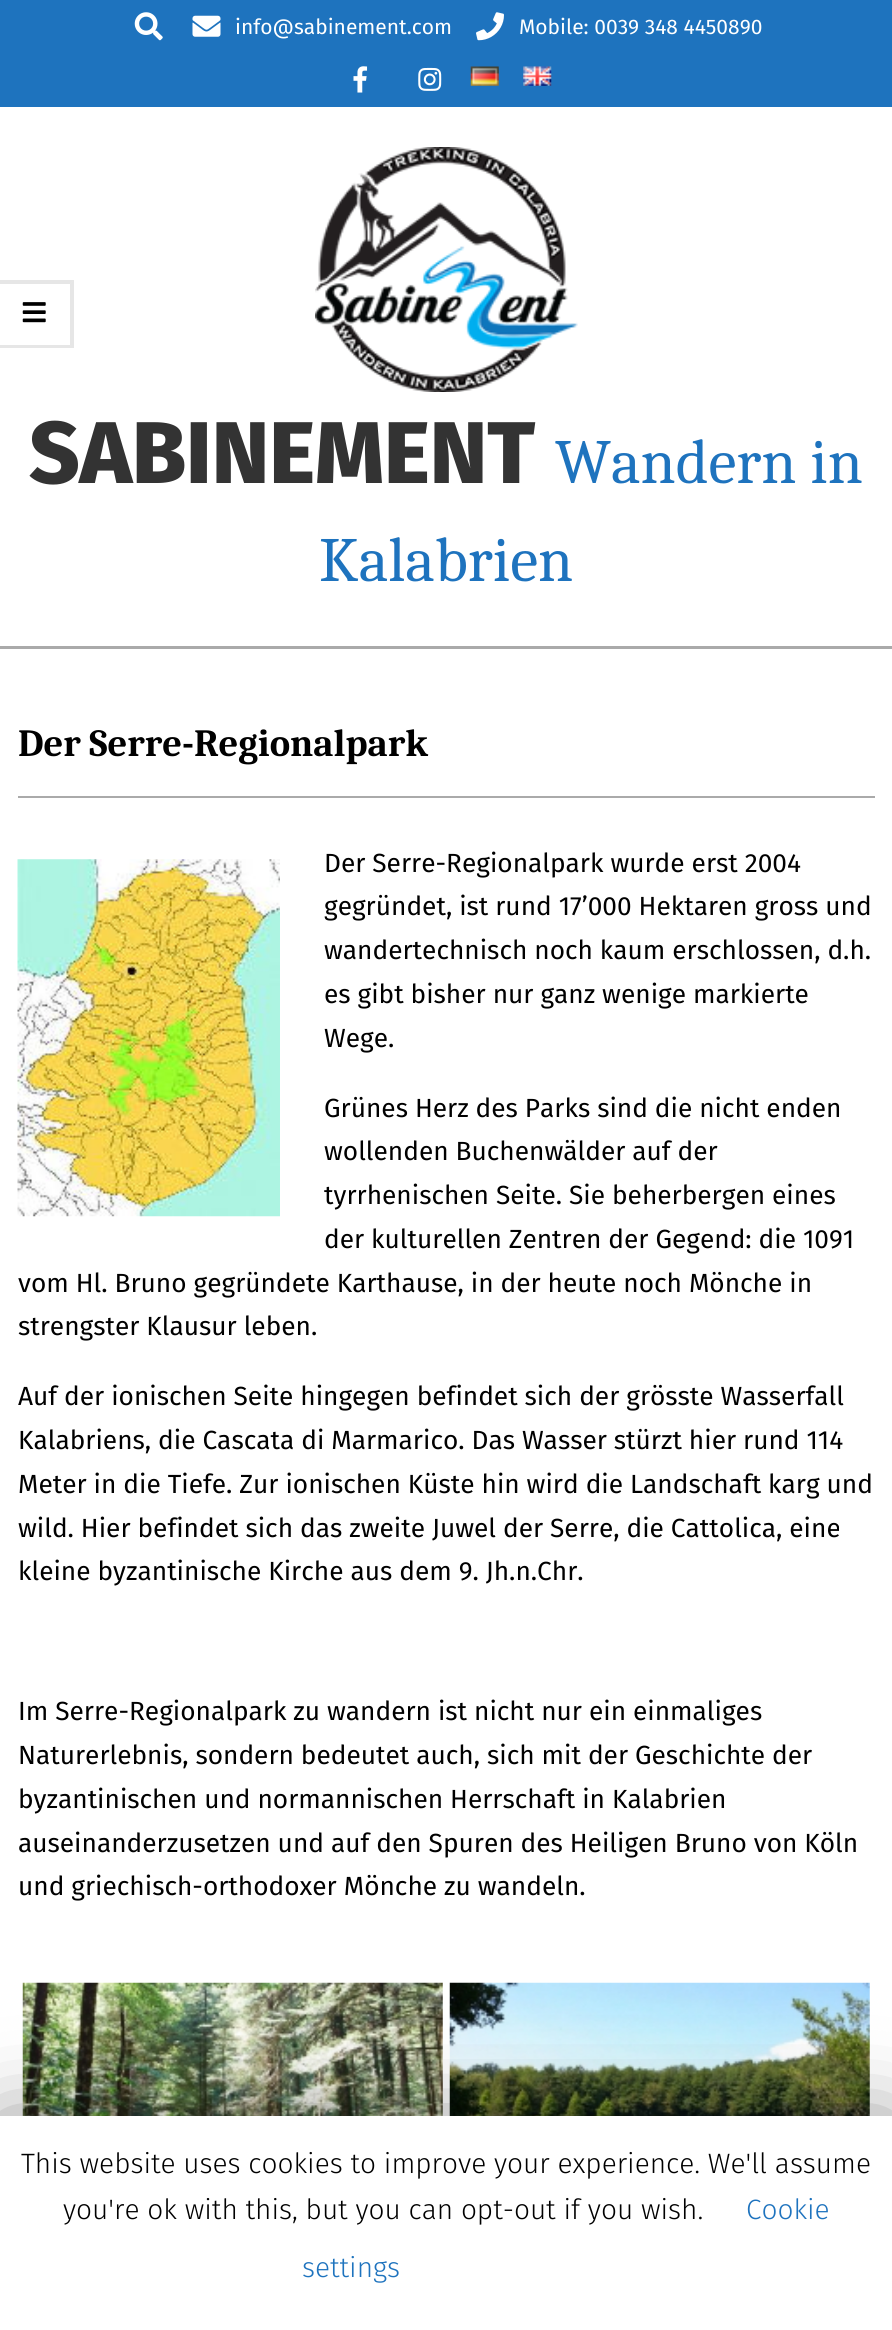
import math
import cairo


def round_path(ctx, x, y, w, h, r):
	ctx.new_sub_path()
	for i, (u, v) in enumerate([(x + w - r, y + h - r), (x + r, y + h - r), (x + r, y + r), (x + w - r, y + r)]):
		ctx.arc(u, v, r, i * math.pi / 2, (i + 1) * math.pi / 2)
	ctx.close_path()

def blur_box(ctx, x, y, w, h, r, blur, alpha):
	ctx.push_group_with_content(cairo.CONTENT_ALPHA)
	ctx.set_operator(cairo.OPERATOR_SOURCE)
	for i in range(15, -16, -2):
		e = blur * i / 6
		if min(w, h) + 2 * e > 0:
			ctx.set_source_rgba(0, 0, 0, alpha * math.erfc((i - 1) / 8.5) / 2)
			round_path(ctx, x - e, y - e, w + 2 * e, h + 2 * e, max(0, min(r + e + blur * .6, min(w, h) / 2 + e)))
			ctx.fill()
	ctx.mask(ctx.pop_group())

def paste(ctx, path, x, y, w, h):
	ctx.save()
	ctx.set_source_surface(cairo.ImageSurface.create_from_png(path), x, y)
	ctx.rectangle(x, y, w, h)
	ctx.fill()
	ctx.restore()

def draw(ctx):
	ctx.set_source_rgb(1, 1, 1)
	ctx.paint()
	ctx.set_source_rgb(0.118, 0.451, 0.745)
	ctx.rectangle(0, 0, 892, 107)
	ctx.fill()
	paste(ctx, 'media/1.png', 134, 12, 29, 29)
	paste(ctx, 'media/2.png', 192, 15, 29, 22)
	ctx.select_font_face('Fira Sans')
	ctx.set_font_size(21)
	ctx.set_source_rgb(1, 1, 1)
	ctx.move_to(235, 34)
	ctx.show_text('info@sabinement.com')
	paste(ctx, 'media/3.png', 476, 12, 28, 29)
	ctx.move_to(519, 34)
	ctx.show_text('Mobile: 0039 348 4450890')
	paste(ctx, 'media/4.png', 353, 66, 15, 27)
	paste(ctx, 'media/5.png', 418, 67, 24, 24)
	paste(ctx, 'media/6.png', 470, 66, 29, 20)
	paste(ctx, 'media/7.png', 523, 66, 29, 20)
	ctx.set_source_rgb(0.902, 0.902, 0.902)
	ctx.new_path()
	ctx.move_to(0, 280)
	ctx.line_to(74, 280)
	ctx.line_to(70, 284)
	ctx.line_to(0, 284)
	ctx.close_path()
	ctx.fill()
	ctx.set_source_rgba(0, 0, 0, 0.1)
	ctx.new_path()
	ctx.move_to(74, 280)
	ctx.line_to(74, 348)
	ctx.line_to(70, 345)
	ctx.line_to(70, 284)
	ctx.close_path()
	ctx.fill()
	ctx.new_path()
	ctx.move_to(74, 348)
	ctx.line_to(0, 348)
	ctx.line_to(0, 345)
	ctx.line_to(70, 345)
	ctx.close_path()
	ctx.fill()
	paste(ctx, 'media/8.png', 22, 302, 24, 21)
	paste(ctx, 'media/9.png', 315, 147, 263, 245)
	ctx.select_font_face('Fira Sans ExtraBold')
	ctx.set_font_size(87.5)
	ctx.set_source_rgb(0.2, 0.2, 0.2)
	ctx.move_to(29, 483)
	ctx.show_text('SABINEMENT')
	ctx.select_font_face('Caladea')
	ctx.set_font_size(63)
	ctx.set_source_rgb(0.118, 0.451, 0.745)
	ctx.move_to(555, 483)
	ctx.show_text('Wandern in')
	ctx.move_to(319, 581)
	ctx.show_text('Kalabrien')
	ctx.set_source_rgb(0.667, 0.667, 0.667)
	ctx.rectangle(0, 646, 892, 3)
	ctx.fill()
	ctx.rectangle(18, 796, 857, 2)
	ctx.fill()
	ctx.select_font_face('Caladea', cairo.FONT_SLANT_NORMAL, cairo.FONT_WEIGHT_BOLD)
	ctx.set_font_size(38.5)
	ctx.set_source_rgb(0, 0, 0)
	ctx.move_to(18, 756)
	ctx.show_text('Der Serre-Regionalpark')
	paste(ctx, 'media/10.png', 17, 859, 263, 358)
	ctx.select_font_face('Fira Sans')
	ctx.set_font_size(26.25)
	for x, y, s in [
		(324, 872, 'Der Serre-Regionalpark wurde erst 2004'),
		(324, 915, 'gegründet, ist rund 17’000 Hektaren gross und'),
		(324, 959, 'wandertechnisch noch kaum erschlossen, d.h.'),
		(324, 1003, 'es gibt bisher nur ganz wenige markierte'),
		(324, 1047, 'Wege.'),
		(324, 1117, 'Grünes Herz des Parks sind die nicht enden'),
		(324, 1160, 'wollenden Buchenwälder auf der'),
		(324, 1204, 'tyrrhenischen Seite. Sie beherbergen eines'),
		(324, 1248, 'der kulturellen Zentren der Gegend: die 1091'),
		(18, 1292, 'vom Hl. Bruno gegründete Karthause, in der heute noch Mönche in'),
		(18, 1335, 'strengster Klausur leben.'),
		(18, 1405, 'Auf der ionischen Seite hingegen befindet sich der grösste Wasserfall'),
		(18, 1449, 'Kalabriens, die Cascata di Marmarico. Das Wasser stürzt hier rund 114'),
		(18, 1493, 'Meter in die Tiefe. Zur ionischen Küste hin wird die Landschaft karg und'),
		(18, 1537, 'wild. Hier befindet sich das zweite Juwel der Serre, die Cattolica, eine'),
		(18, 1580, 'kleine byzantinische Kirche aus dem 9. Jh.n.Chr.'),
		(18, 1720, 'Im Serre-Regionalpark zu wandern ist nicht nur ein einmaliges'),
		(18, 1764, 'Naturerlebnis, sondern bedeutet auch, sich mit der Geschichte der'),
		(18, 1808, 'byzantinischen und normannischen Herrschaft in Kalabrien'),
		(18, 1852, 'auseinanderzusetzen und auf den Spuren des Heiligen Bruno von Köln'),
		(18, 1895, 'und griechisch-orthodoxer Mönche zu wandeln.'),
	]:
		ctx.move_to(x, y)
		ctx.show_text(s)
	paste(ctx, 'media/11.png', 22, 1982, 421, 134)
	paste(ctx, 'media/12.png', 449, 1982, 421, 134)
	ctx.set_source_rgb(0, 0, 0)
	blur_box(ctx, 0, 2125, 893, 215, 0, 44, 0.5)
	ctx.set_source_rgb(1, 1, 1)
	ctx.rectangle(0, 2116, 892, 214)
	ctx.fill()
	ctx.select_font_face('Fira Sans Light')
	ctx.set_font_size(28)
	ctx.set_source_rgb(0, 0, 0)
	ctx.move_to(21, 2173)
	ctx.show_text('This website uses cookies to improve your experience. We\'ll assume')
	ctx.move_to(63, 2219)
	ctx.show_text('you\'re ok with this, but you can opt-out if you wish.')
	ctx.set_source_rgb(0.118, 0.451, 0.745)
	ctx.move_to(746, 2219)
	ctx.show_text('Cookie')
	ctx.move_to(302, 2277)
	ctx.show_text('settings')


surface = cairo.ImageSurface(cairo.FORMAT_RGB24, 892, 2330)
ctx = cairo.Context(surface)
options = cairo.FontOptions()
options.set_hint_metrics(cairo.HINT_METRICS_OFF)
options.set_hint_style(cairo.HINT_STYLE_NONE)
ctx.set_font_options(options)
ctx.set_miter_limit(4)
draw(ctx)
surface.write_to_png('image.png')
